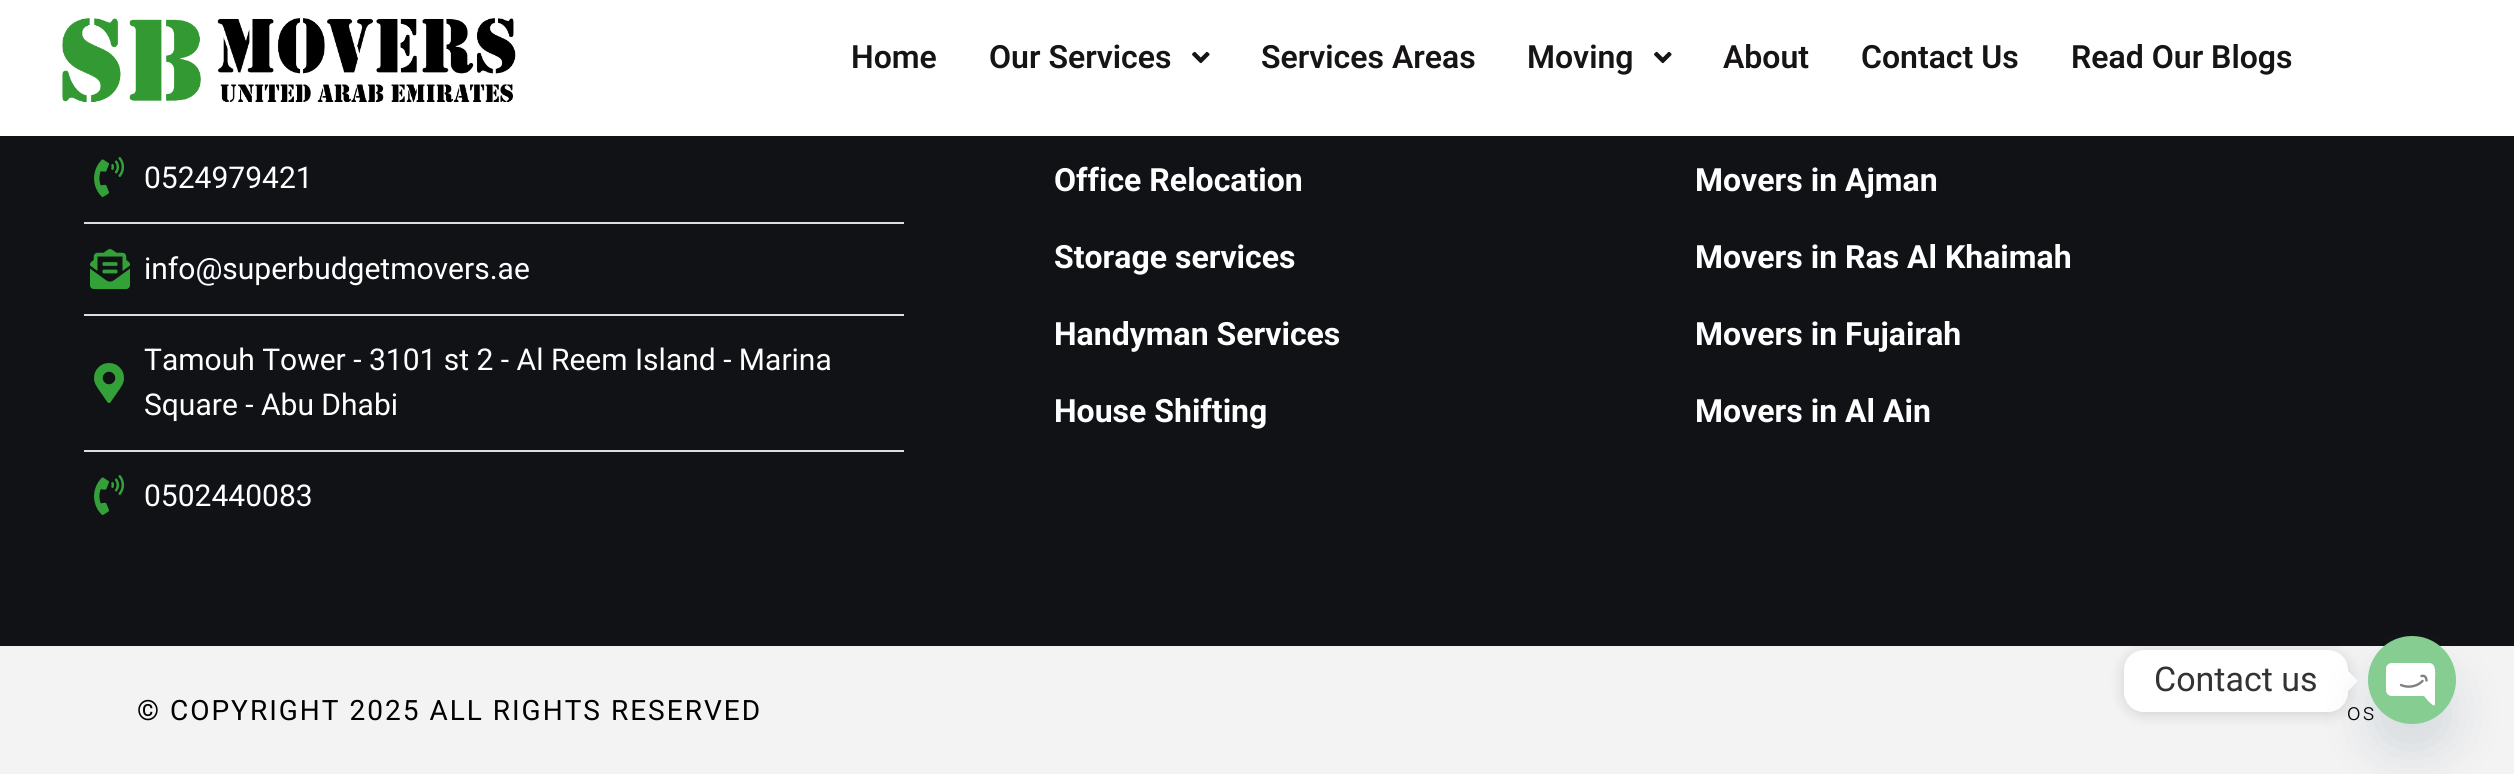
import math
import cairo


def write_spaced(ctx, x, y, s, letter, word):
	ctx.move_to(x, y)
	for ch in s:
		ctx.show_text(ch)
		ctx.rel_move_to(letter + word * (ch == ' '), 0)

def round_path(ctx, x, y, w, h, r):
	ctx.new_sub_path()
	for i, (u, v) in enumerate([(x + w - r, y + h - r), (x + r, y + h - r), (x + r, y + r), (x + w - r, y + r)]):
		ctx.arc(u, v, r, i * math.pi / 2, (i + 1) * math.pi / 2)
	ctx.close_path()

def blur_box(ctx, x, y, w, h, r, blur, alpha):
	ctx.push_group_with_content(cairo.CONTENT_ALPHA)
	ctx.set_operator(cairo.OPERATOR_SOURCE)
	for i in range(15, -16, -2):
		e = blur * i / 6
		if min(w, h) + 2 * e > 0:
			ctx.set_source_rgba(0, 0, 0, alpha * math.erfc((i - 1) / 8.5) / 2)
			round_path(ctx, x - e, y - e, w + 2 * e, h + 2 * e, max(0, min(r + e + blur * .6, min(w, h) / 2 + e)))
			ctx.fill()
	ctx.mask(ctx.pop_group())

def paste(ctx, path, x, y, w, h):
	ctx.save()
	ctx.set_source_surface(cairo.ImageSurface.create_from_png(path), x, y)
	ctx.rectangle(x, y, w, h)
	ctx.fill()
	ctx.restore()

def draw(ctx):
	ctx.set_source_rgb(0.063, 0.071, 0.086)
	ctx.paint()
	ctx.set_source_rgb(1, 1, 1)
	ctx.rectangle(0, 0, 2514, 136)
	ctx.fill()
	paste(ctx, 'media/1.png', 62, 18, 454, 84)
	ctx.select_font_face('Roboto SemiBold')
	ctx.set_font_size(32)
	ctx.set_source_rgb(0.086, 0.082, 0.082)
	ctx.move_to(851, 68)
	ctx.show_text('Home')
	ctx.move_to(989, 68)
	ctx.show_text('Our Services')
	paste(ctx, 'media/2.png', 1192, 51, 18, 13)
	ctx.move_to(1261, 68)
	ctx.show_text('Services Areas')
	ctx.move_to(1527, 68)
	ctx.show_text('Moving')
	paste(ctx, 'media/2.png', 1654, 51, 18, 13)
	for x, y, s in [
		(1723, 68, 'About'),
		(1861, 68, 'Contact Us'),
		(2071, 68, 'Read Our Blogs'),
	]:
		ctx.move_to(x, y)
		ctx.show_text(s)
	paste(ctx, 'media/3.png', 94, 156, 31, 41)
	ctx.select_font_face('Roboto')
	ctx.set_font_size(30)
	ctx.set_source_rgb(1, 1, 1)
	ctx.move_to(144, 188)
	ctx.show_text('0524979421')
	ctx.set_source_rgb(0.867, 0.867, 0.867)
	ctx.rectangle(84, 222, 820, 2)
	ctx.fill()
	paste(ctx, 'media/4.png', 90, 249, 40, 40)
	ctx.set_source_rgb(1, 1, 1)
	ctx.move_to(144, 279)
	ctx.show_text('info@superbudgetmovers.ae')
	ctx.set_source_rgb(0.867, 0.867, 0.867)
	ctx.rectangle(84, 314, 820, 2)
	ctx.fill()
	paste(ctx, 'media/5.png', 94, 363, 30, 40)
	ctx.set_source_rgb(1, 1, 1)
	ctx.move_to(144, 370)
	ctx.show_text('Tamouh Tower - 3101 st 2 - Al Reem Island - Marina')
	ctx.move_to(144, 415)
	ctx.show_text('Square - Abu Dhabi')
	ctx.set_source_rgb(0.867, 0.867, 0.867)
	ctx.rectangle(84, 450, 820, 2)
	ctx.fill()
	paste(ctx, 'media/3.png', 94, 474, 31, 41)
	ctx.set_source_rgb(1, 1, 1)
	ctx.move_to(144, 506)
	ctx.show_text('0502440083')
	ctx.select_font_face('Roboto', cairo.FONT_SLANT_NORMAL, cairo.FONT_WEIGHT_BOLD)
	ctx.set_font_size(32)
	for x, y, s in [
		(1054, 191, 'Office Relocation'),
		(1054, 268, 'Storage services'),
		(1054, 345, 'Handyman Services'),
		(1054, 422, 'House Shifting'),
		(1695, 191, 'Movers in Ajman'),
		(1695, 268, 'Movers in Ras Al Khaimah'),
		(1695, 345, 'Movers in Fujairah'),
		(1695, 422, 'Movers in Al Ain'),
	]:
		ctx.move_to(x, y)
		ctx.show_text(s)
	ctx.set_source_rgb(0.953, 0.953, 0.953)
	ctx.rectangle(0, 646, 2514, 128)
	ctx.fill()
	ctx.select_font_face('Roboto')
	ctx.set_font_size(28)
	ctx.set_source_rgb(0, 0, 0)
	write_spaced(ctx, 137, 720, '© COPYRIGHT 2025 ALL RIGHTS RESERVED', 2, 0)
	ctx.select_font_face('Roboto Light')
	ctx.set_font_size(24)
	write_spaced(ctx, 2347, 720, 'os', 2, 0)
	ctx.set_source_rgb(0, 0, 0)
	blur_box(ctx, 2124, 652, 224, 62, 20, 7.5, 0.15)
	ctx.set_source_rgb(1, 1, 1)
	round_path(ctx, 2124, 650, 224, 62, 20)
	ctx.fill()
	ctx.select_font_face('Roboto')
	ctx.set_font_size(34)
	ctx.set_source_rgb(0.2, 0.2, 0.2)
	ctx.move_to(2154, 691)
	ctx.show_text('Contact us')
	ctx.set_source_rgb(1, 1, 1)
	ctx.new_path()
	ctx.move_to(2348, 691)
	ctx.line_to(2348, 671)
	ctx.line_to(2358, 681)
	ctx.close_path()
	ctx.fill()
	ctx.set_source_rgb(0.286, 0.408, 0.494)
	blur_box(ctx, 2368, 668, 88, 88, 44, 24, 0.16)
	ctx.set_source_rgb(0.525, 0.804, 0.569)
	ctx.arc(2412, 680, 44, 0, 2 * math.pi)
	ctx.fill()
	ctx.set_source_rgb(1, 1, 1)
	ctx.new_path()
	ctx.move_to(2429, 663)
	ctx.line_to(2392, 663)
	ctx.curve_to(2389, 663, 2386, 665, 2386, 669)
	ctx.line_to(2386, 690)
	ctx.curve_to(2386, 694, 2389, 696, 2392, 696)
	ctx.line_to(2424, 696)
	ctx.line_to(2429, 702)
	ctx.curve_to(2430, 702, 2434, 708, 2435, 704)
	ctx.line_to(2435, 680)
	ctx.curve_to(2435, 675, 2437, 663, 2429, 663)
	ctx.close_path()
	ctx.fill()
	ctx.new_path()
	ctx.move_to(2401, 685)
	ctx.curve_to(2405, 687, 2415, 688.5, 2422.5, 681)
	ctx.move_to(2426.5, 680.5)
	ctx.curve_to(2426.5, 678.5, 2425.5, 675, 2421.5, 676)
	ctx.set_source_rgb(0.502, 0.502, 0.502)
	ctx.set_line_width(2.4)
	ctx.set_line_cap(cairo.LINE_CAP_ROUND)
	ctx.set_line_join(cairo.LINE_JOIN_ROUND)
	ctx.stroke()


surface = cairo.ImageSurface(cairo.FORMAT_RGB24, 2514, 774)
ctx = cairo.Context(surface)
options = cairo.FontOptions()
options.set_hint_metrics(cairo.HINT_METRICS_OFF)
options.set_hint_style(cairo.HINT_STYLE_NONE)
ctx.set_font_options(options)
ctx.set_miter_limit(4)
draw(ctx)
surface.write_to_png('image.png')
